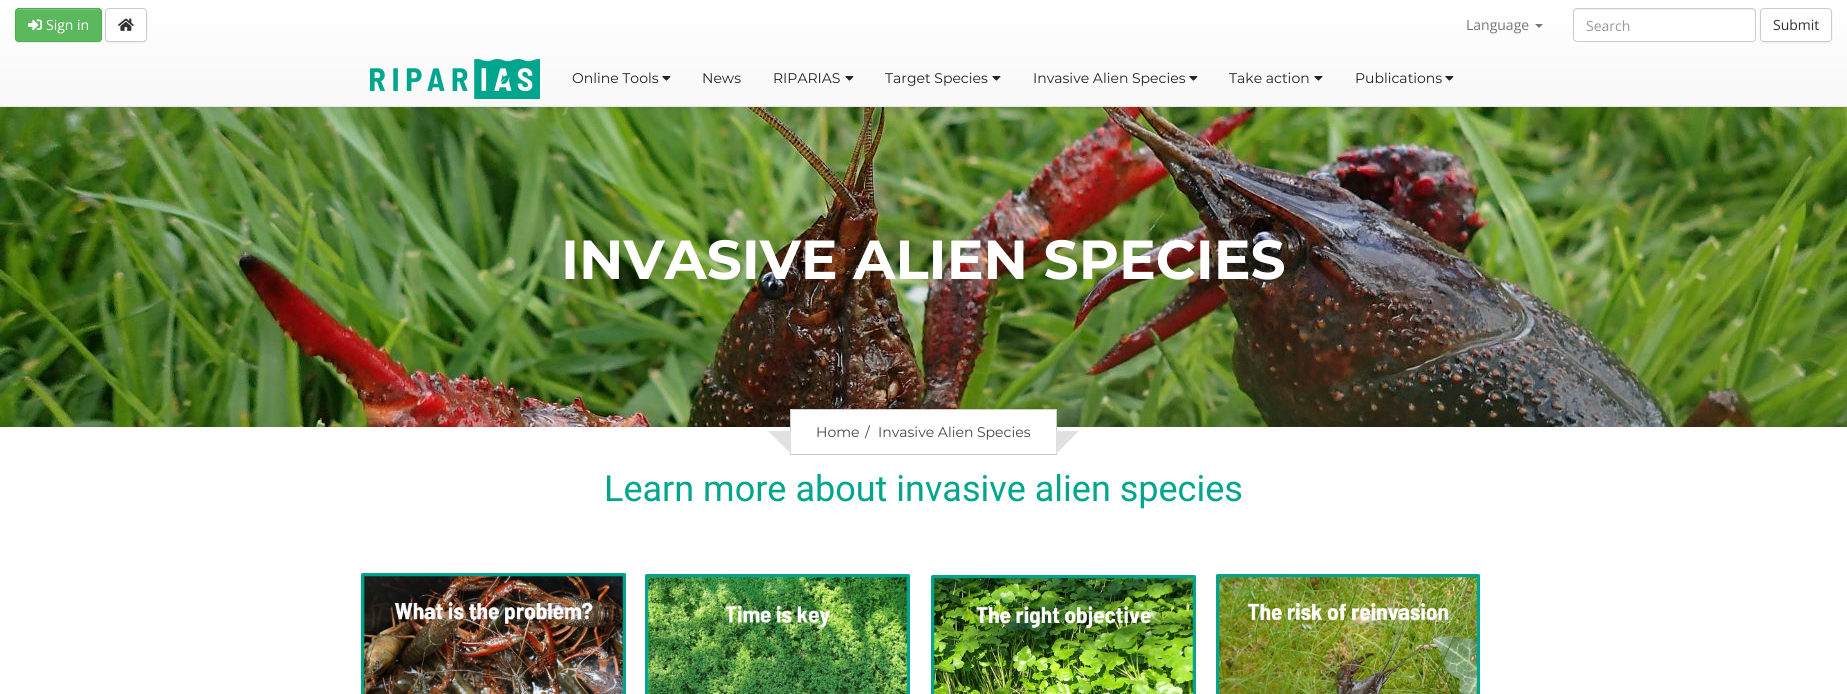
import math
import cairo


def round_path(ctx, x, y, w, h, r):
	ctx.new_sub_path()
	for i, (u, v) in enumerate([(x + w - r, y + h - r), (x + r, y + h - r), (x + r, y + r), (x + w - r, y + r)]):
		ctx.arc(u, v, r, i * math.pi / 2, (i + 1) * math.pi / 2)
	ctx.close_path()

def blur_box(ctx, x, y, w, h, r, blur, alpha):
	ctx.push_group_with_content(cairo.CONTENT_ALPHA)
	ctx.set_operator(cairo.OPERATOR_SOURCE)
	for i in range(15, -16, -2):
		e = blur * i / 6
		if min(w, h) + 2 * e > 0:
			ctx.set_source_rgba(0, 0, 0, alpha * math.erfc((i - 1) / 8.5) / 2)
			round_path(ctx, x - e, y - e, w + 2 * e, h + 2 * e, max(0, min(r + e + blur * .6, min(w, h) / 2 + e)))
			ctx.fill()
	ctx.mask(ctx.pop_group())

def paste(ctx, path, x, y, w, h):
	ctx.save()
	ctx.set_source_surface(cairo.ImageSurface.create_from_png(path), x, y)
	ctx.rectangle(x, y, w, h)
	ctx.fill()
	ctx.restore()

def draw(ctx):
	ctx.set_source_rgb(1, 1, 1)
	ctx.paint()
	paste(ctx, 'media/5.png', 0, 107, 1847, 320)
	ctx.set_source_rgb(0, 0, 0)
	blur_box(ctx, 0, 1, 1847, 107, 0, 2.5, 0.07)
	gradient = cairo.LinearGradient(924, 0, 924, 106)
	gradient.add_color_stop_rgba(0, 1, 1, 1, 1)
	gradient.add_color_stop_rgba(1, 0.973, 0.973, 0.973, 1)
	ctx.set_source(gradient)
	ctx.rectangle(0, 0, 1847, 106)
	ctx.fill()
	ctx.set_source_rgb(0.906, 0.906, 0.906)
	ctx.rectangle(0, 106, 1847, 1)
	ctx.fill()
	ctx.set_source_rgb(0, 0, 0)
	blur_box(ctx, 15, 9, 87, 34, 4, 0.5, 0.07)
	ctx.set_source_rgb(0.361, 0.722, 0.361)
	round_path(ctx, 15, 8, 87, 34, 4)
	ctx.fill()
	ctx.set_source_rgb(0.455, 0.765, 0.455)
	ctx.new_path()
	ctx.move_to(19, 10)
	ctx.line_to(98, 10)
	ctx.curve_to(100, 10, 101, 11, 101, 13)
	ctx.curve_to(101, 6, 89, 9, 85, 9)
	ctx.line_to(32, 9)
	ctx.curve_to(28, 9, 16, 6, 16, 13)
	ctx.curve_to(16, 11, 17, 10, 19, 10)
	ctx.close_path()
	ctx.fill()
	round_path(ctx, 15.5, 8.5, 86, 33, 3.5)
	ctx.set_source_rgb(0.298, 0.682, 0.298)
	ctx.set_line_width(1)
	ctx.stroke()
	paste(ctx, 'media/1.png', 28, 19, 14, 12)
	ctx.select_font_face('Open Sans')
	ctx.set_font_size(14)
	ctx.set_source_rgb(1, 1, 1)
	ctx.move_to(46, 30)
	ctx.show_text('Sign in')
	ctx.set_source_rgb(0, 0, 0)
	blur_box(ctx, 105, 9, 42, 34, 4, 0.5, 0.07)
	ctx.set_source_rgb(1, 1, 1)
	round_path(ctx, 105.5, 8.5, 41, 33, 3.5)
	ctx.fill_preserve()
	ctx.set_source_rgb(0.8, 0.8, 0.8)
	ctx.stroke()
	paste(ctx, 'media/2.png', 118, 18, 16, 13)
	ctx.set_source_rgb(0.467, 0.467, 0.467)
	ctx.move_to(1466, 30)
	ctx.show_text('Language')
	ctx.new_path()
	ctx.move_to(1535, 24)
	ctx.line_to(1543, 24)
	ctx.line_to(1539, 28)
	ctx.close_path()
	ctx.fill()
	ctx.set_source_rgb(1, 1, 1)
	round_path(ctx, 1573, 8, 183, 34, 4)
	ctx.fill()
	ctx.set_source_rgb(0.925, 0.925, 0.925)
	ctx.new_path()
	ctx.move_to(1577, 10)
	ctx.line_to(1753, 10)
	ctx.line_to(1754, 11)
	ctx.line_to(1755, 13)
	ctx.line_to(1755, 12)
	ctx.curve_to(1755, 10, 1754, 9, 1752, 9)
	ctx.line_to(1577, 9)
	ctx.curve_to(1575, 9, 1574, 10, 1574, 12)
	ctx.line_to(1574, 13)
	ctx.curve_to(1574, 11, 1575, 10, 1577, 10)
	ctx.close_path()
	ctx.fill()
	round_path(ctx, 1573.5, 8.5, 182, 33, 3.5)
	ctx.set_source_rgb(0.8, 0.8, 0.8)
	ctx.stroke()
	ctx.set_source_rgb(0.6, 0.6, 0.6)
	ctx.move_to(1586, 31)
	ctx.show_text('Search')
	ctx.set_source_rgb(0, 0, 0)
	blur_box(ctx, 1760, 9, 72, 34, 4, 0.5, 0.07)
	ctx.set_source_rgb(1, 1, 1)
	round_path(ctx, 1760.5, 8.5, 71, 33, 3.5)
	ctx.fill_preserve()
	ctx.set_source_rgb(0.8, 0.8, 0.8)
	ctx.stroke()
	ctx.set_source_rgb(0.2, 0.2, 0.2)
	ctx.move_to(1773, 30)
	ctx.show_text('Submit')
	paste(ctx, 'media/3.png', 370, 59, 170, 40)
	ctx.select_font_face('Montserrat')
	ctx.set_source_rgb(0.133, 0.133, 0.133)
	ctx.move_to(572, 83)
	ctx.show_text('Online Tools')
	paste(ctx, 'media/4.png', 662, 76, 9, 5)
	ctx.move_to(702, 83)
	ctx.show_text('News')
	ctx.move_to(773, 83)
	ctx.show_text('RIPARIAS')
	paste(ctx, 'media/4.png', 845, 76, 9, 5)
	ctx.move_to(885, 83)
	ctx.show_text('Target Species')
	paste(ctx, 'media/4.png', 992, 76, 9, 5)
	ctx.move_to(1033, 83)
	ctx.show_text('Invasive Alien Species')
	paste(ctx, 'media/4.png', 1189, 76, 9, 5)
	ctx.move_to(1229, 83)
	ctx.show_text('Take action')
	paste(ctx, 'media/4.png', 1314, 76, 9, 5)
	ctx.move_to(1355, 83)
	ctx.show_text('Publications')
	paste(ctx, 'media/4.png', 1445, 76, 9, 5)
	ctx.select_font_face('Montserrat', cairo.FONT_SLANT_NORMAL, cairo.FONT_WEIGHT_BOLD)
	ctx.set_font_size(55)
	ctx.set_source_rgb(1, 1, 1)
	ctx.move_to(561, 279)
	ctx.show_text('INVASIVE ALIEN SPECIES')
	ctx.rectangle(791, 410, 265, 17)
	ctx.fill()
	ctx.rectangle(790.5, 409.5, 266, 45)
	ctx.set_source_rgb(0.8, 0.8, 0.8)
	ctx.stroke()
	ctx.set_source_rgb(0.882, 0.882, 0.882)
	ctx.new_path()
	ctx.move_to(768, 431)
	ctx.line_to(791, 431)
	ctx.line_to(791, 454)
	ctx.close_path()
	ctx.fill()
	ctx.select_font_face('Montserrat')
	ctx.set_font_size(14)
	ctx.set_source_rgb(0.267, 0.267, 0.267)
	for x, y, s in [
		(816, 437, 'Home'),
		(865, 437, '/'),
		(878, 437, 'Invasive Alien Species'),
	]:
		ctx.move_to(x, y)
		ctx.show_text(s)
	ctx.set_source_rgb(0.882, 0.882, 0.882)
	ctx.new_path()
	ctx.move_to(1056, 431)
	ctx.line_to(1079, 431)
	ctx.line_to(1056, 454)
	ctx.close_path()
	ctx.fill()
	ctx.select_font_face('Roboto')
	ctx.set_font_size(36)
	ctx.set_source_rgb(0, 0.647, 0.553)
	ctx.move_to(604, 501)
	ctx.show_text('Learn more about invasive alien species')
	paste(ctx, 'media/6.png', 361, 573, 265, 121)
	paste(ctx, 'media/7.png', 645, 574, 265, 120)
	paste(ctx, 'media/8.png', 931, 575, 265, 119)
	paste(ctx, 'media/9.png', 1216, 574, 264, 120)


surface = cairo.ImageSurface(cairo.FORMAT_RGB24, 1847, 694)
ctx = cairo.Context(surface)
options = cairo.FontOptions()
options.set_hint_metrics(cairo.HINT_METRICS_OFF)
options.set_hint_style(cairo.HINT_STYLE_NONE)
ctx.set_font_options(options)
ctx.set_miter_limit(4)
draw(ctx)
surface.write_to_png('image.png')
